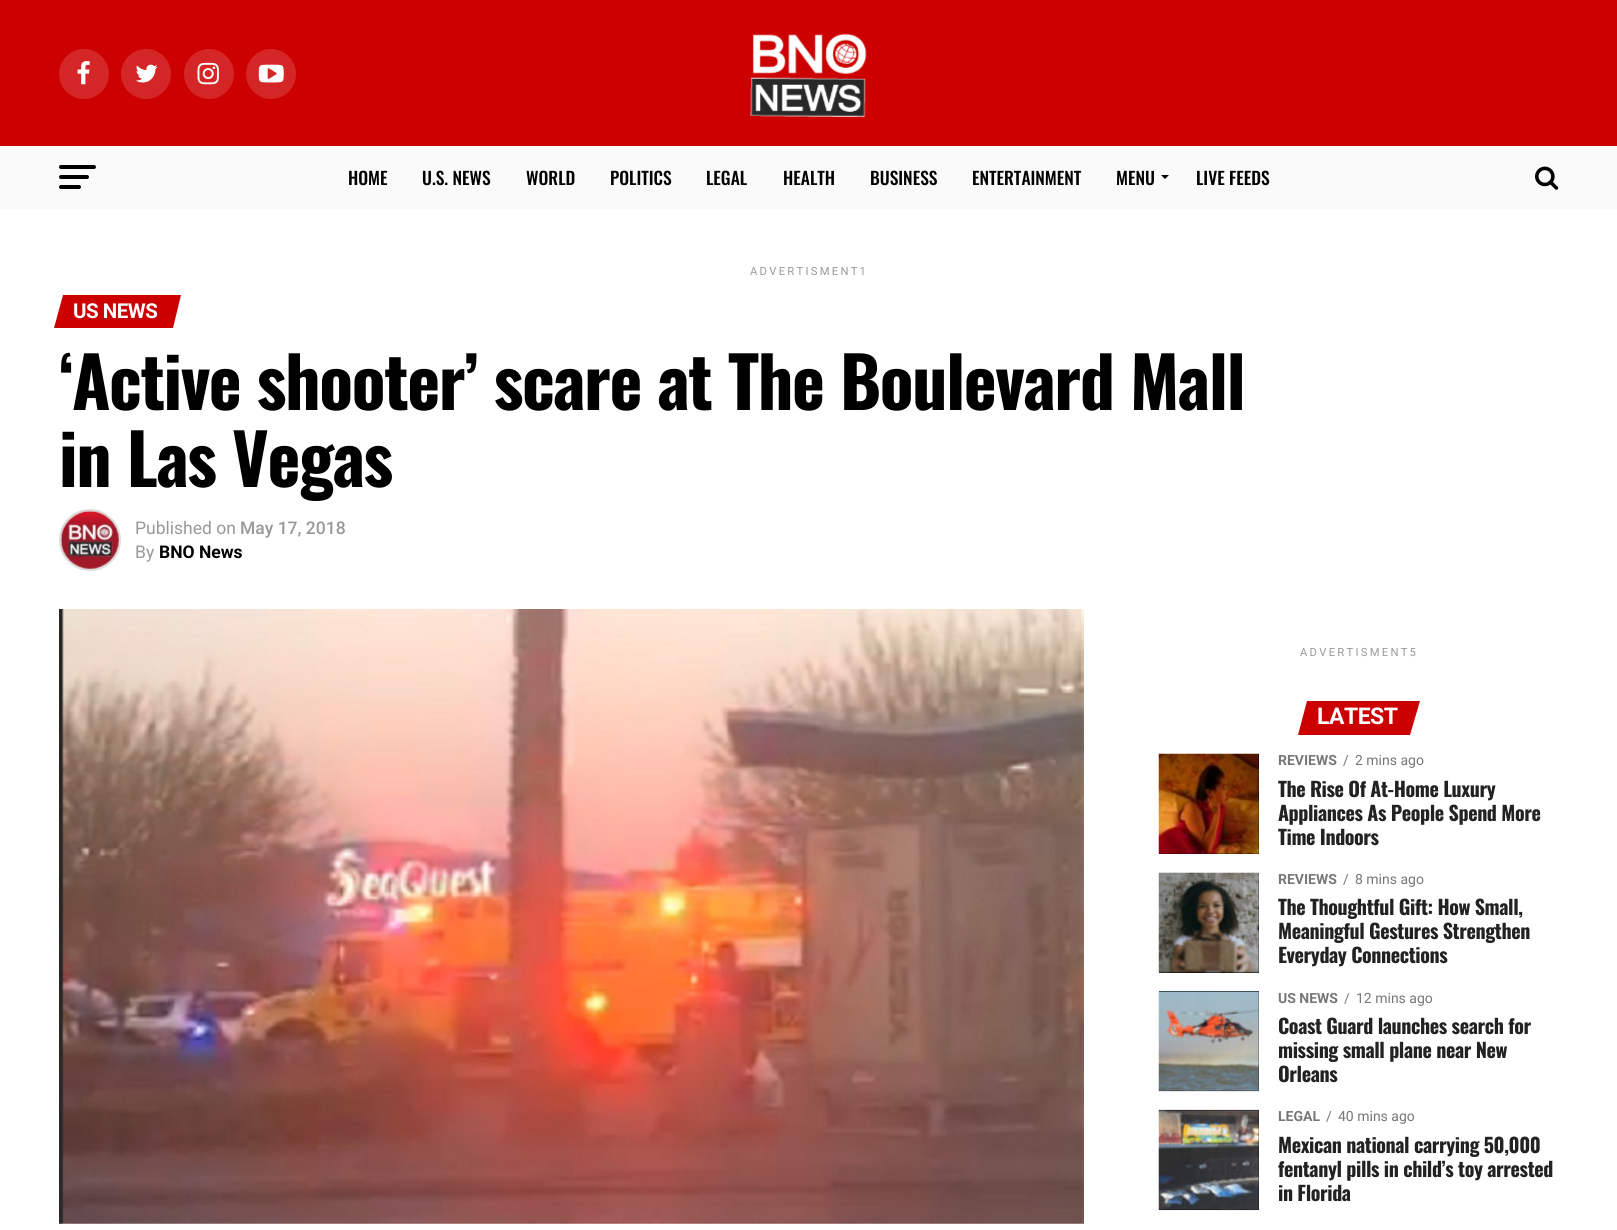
import math
import cairo


def write_spaced(ctx, x, y, s, letter, word):
	ctx.move_to(x, y)
	for ch in s:
		ctx.show_text(ch)
		ctx.rel_move_to(letter + word * (ch == ' '), 0)

def round_path(ctx, x, y, w, h, r):
	ctx.new_sub_path()
	for i, (u, v) in enumerate([(x + w - r, y + h - r), (x + r, y + h - r), (x + r, y + r), (x + w - r, y + r)]):
		ctx.arc(u, v, r, i * math.pi / 2, (i + 1) * math.pi / 2)
	ctx.close_path()

def paste(ctx, path, x, y, w, h):
	ctx.save()
	ctx.set_source_surface(cairo.ImageSurface.create_from_png(path), x, y)
	ctx.rectangle(x, y, w, h)
	ctx.fill()
	ctx.restore()

def draw(ctx):
	ctx.set_source_rgb(1, 1, 1)
	ctx.paint()
	ctx.set_source_rgb(0.8, 0, 0)
	ctx.rectangle(0, 0, 1617, 146)
	ctx.fill()
	ctx.set_source_rgb(0.831, 0.149, 0.149)
	ctx.arc(84, 74, 25, 0, 2 * math.pi)
	ctx.fill()
	paste(ctx, 'media/1.png', 77, 61, 13, 24)
	ctx.arc(146, 74, 25, 0, 2 * math.pi)
	ctx.fill()
	paste(ctx, 'media/2.png', 135, 64, 23, 19)
	ctx.arc(209, 74, 25, 0, 2 * math.pi)
	ctx.fill()
	paste(ctx, 'media/3.png', 197, 62, 22, 23)
	ctx.arc(271, 74, 25, 0, 2 * math.pi)
	ctx.fill()
	paste(ctx, 'media/4.png', 258, 64, 26, 19)
	paste(ctx, 'media/5.png', 750, 33, 117, 85)
	ctx.set_source_rgb(0.98, 0.98, 0.98)
	ctx.rectangle(0, 146, 1617, 63)
	ctx.fill()
	ctx.set_source_rgb(0, 0, 0)
	round_path(ctx, 59, 165, 37, 4, 2)
	ctx.fill()
	round_path(ctx, 59, 175, 30, 4, 2)
	ctx.fill()
	round_path(ctx, 59, 185, 22, 4, 2)
	ctx.fill()
	ctx.select_font_face('Oswald Medium')
	ctx.set_font_size(17.5)
	for x, y, s in [
		(348, 185, 'HOME'),
		(422, 185, 'U.S. NEWS'),
		(526, 185, 'WORLD'),
		(610, 185, 'POLITICS'),
		(706, 185, 'LEGAL'),
		(783, 185, 'HEALTH'),
		(870, 185, 'BUSINESS'),
		(972, 185, 'ENTERTAINMENT'),
		(1116, 185, 'MENU'),
	]:
		ctx.move_to(x, y)
		ctx.show_text(s)
	ctx.new_path()
	ctx.move_to(1161, 175)
	ctx.line_to(1169, 175)
	ctx.line_to(1165, 179)
	ctx.close_path()
	ctx.fill()
	ctx.move_to(1196, 185)
	ctx.show_text('LIVE FEEDS')
	paste(ctx, 'media/6.png', 1535, 166, 24, 24)
	ctx.select_font_face('Roboto')
	ctx.set_font_size(11.25)
	ctx.set_source_rgb(0.6, 0.6, 0.6)
	write_spaced(ctx, 750, 275, 'ADVERTISMENT1', 2.25, 0)
	ctx.set_source_rgb(0.8, 0, 0)
	ctx.new_path()
	ctx.move_to(63, 295)
	ctx.line_to(181, 295)
	ctx.line_to(173, 328)
	ctx.line_to(54, 328)
	ctx.close_path()
	ctx.fill()
	ctx.select_font_face('Roboto', cairo.FONT_SLANT_NORMAL, cairo.FONT_WEIGHT_BOLD)
	ctx.set_font_size(20.5)
	ctx.set_source_rgb(1, 1, 1)
	write_spaced(ctx, 73, 318, 'US NEWS', -0.5, 0)
	ctx.select_font_face('Oswald', cairo.FONT_SLANT_NORMAL, cairo.FONT_WEIGHT_BOLD)
	ctx.set_font_size(70)
	ctx.set_source_rgb(0, 0, 0)
	write_spaced(ctx, 59, 410, '‘Active shooter’ scare at The Boulevard Mall', -1.4, 0)
	write_spaced(ctx, 59, 487, 'in Las Vegas', -1.4, 0)
	ctx.new_path()
	ctx.arc(90, 540, 29.5, 0, 2 * math.pi)
	ctx.set_source_rgb(0.867, 0.867, 0.867)
	ctx.set_line_width(3)
	ctx.stroke()
	paste(ctx, 'media/7.png', 60, 510, 59, 59)
	ctx.select_font_face('Roboto')
	ctx.set_font_size(17.5)
	ctx.set_source_rgb(0.6, 0.6, 0.6)
	ctx.move_to(135, 534)
	ctx.show_text('Published on')
	ctx.select_font_face('Roboto Medium')
	ctx.move_to(240, 534)
	ctx.show_text('May 17, 2018')
	ctx.select_font_face('Roboto')
	ctx.move_to(135, 558)
	ctx.show_text('By')
	ctx.select_font_face('Roboto', cairo.FONT_SLANT_NORMAL, cairo.FONT_WEIGHT_BOLD)
	ctx.set_source_rgb(0, 0, 0)
	ctx.move_to(159, 558)
	ctx.show_text('BNO News')
	paste(ctx, 'media/8.png', 59, 609, 1025, 615)
	ctx.select_font_face('Roboto')
	ctx.set_font_size(11.25)
	ctx.set_source_rgb(0.6, 0.6, 0.6)
	write_spaced(ctx, 1300, 656, 'ADVERTISMENT5', 2.25, 0)
	ctx.set_source_rgb(0.8, 0, 0)
	ctx.new_path()
	ctx.move_to(1307, 701)
	ctx.line_to(1420, 701)
	ctx.line_to(1410, 735)
	ctx.line_to(1298, 735)
	ctx.close_path()
	ctx.fill()
	ctx.select_font_face('Roboto', cairo.FONT_SLANT_NORMAL, cairo.FONT_WEIGHT_BOLD)
	ctx.set_font_size(23)
	ctx.set_source_rgb(1, 1, 1)
	write_spaced(ctx, 1317, 724, 'LATEST', -0.5, 0)
	ctx.set_source_rgb(0, 0, 0)
	ctx.rectangle(1159, 754, 100, 100)
	ctx.fill()
	paste(ctx, 'media/9.png', 1158, 753, 101, 101)
	ctx.set_font_size(14)
	ctx.set_source_rgb(0.467, 0.467, 0.467)
	ctx.move_to(1278, 765)
	ctx.show_text('REVIEWS')
	ctx.select_font_face('Roboto')
	ctx.move_to(1343, 765)
	ctx.show_text('/')
	ctx.move_to(1355, 765)
	ctx.show_text('2 mins ago')
	ctx.select_font_face('Oswald', cairo.FONT_SLANT_NORMAL, cairo.FONT_WEIGHT_BOLD)
	ctx.set_font_size(20)
	ctx.set_source_rgb(0.133, 0.133, 0.133)
	for x, y, s in [
		(1278, 797, 'The Rise Of At-Home Luxury'),
		(1278, 821, 'Appliances As People Spend More'),
		(1278, 845, 'Time Indoors'),
	]:
		write_spaced(ctx, x, y, s, -0.4, 0)
	ctx.set_source_rgb(0, 0, 0)
	ctx.rectangle(1159, 873, 100, 100)
	ctx.fill()
	paste(ctx, 'media/10.png', 1158, 872, 101, 101)
	ctx.select_font_face('Roboto', cairo.FONT_SLANT_NORMAL, cairo.FONT_WEIGHT_BOLD)
	ctx.set_font_size(14)
	ctx.set_source_rgb(0.467, 0.467, 0.467)
	ctx.move_to(1278, 884)
	ctx.show_text('REVIEWS')
	ctx.select_font_face('Roboto')
	ctx.move_to(1343, 884)
	ctx.show_text('/')
	ctx.move_to(1355, 884)
	ctx.show_text('8 mins ago')
	ctx.select_font_face('Oswald', cairo.FONT_SLANT_NORMAL, cairo.FONT_WEIGHT_BOLD)
	ctx.set_font_size(20)
	ctx.set_source_rgb(0.133, 0.133, 0.133)
	for x, y, s in [
		(1278, 915, 'The Thoughtful Gift: How Small,'),
		(1278, 939, 'Meaningful Gestures Strengthen'),
		(1278, 963, 'Everyday Connections'),
	]:
		write_spaced(ctx, x, y, s, -0.4, 0)
	ctx.set_source_rgb(0, 0, 0)
	ctx.rectangle(1159, 991, 100, 100)
	ctx.fill()
	paste(ctx, 'media/11.png', 1158, 990, 101, 102)
	ctx.select_font_face('Roboto', cairo.FONT_SLANT_NORMAL, cairo.FONT_WEIGHT_BOLD)
	ctx.set_font_size(14)
	ctx.set_source_rgb(0.467, 0.467, 0.467)
	ctx.move_to(1278, 1003)
	ctx.show_text('US NEWS')
	ctx.select_font_face('Roboto')
	ctx.move_to(1344, 1003)
	ctx.show_text('/')
	ctx.move_to(1356, 1003)
	ctx.show_text('12 mins ago')
	ctx.select_font_face('Oswald', cairo.FONT_SLANT_NORMAL, cairo.FONT_WEIGHT_BOLD)
	ctx.set_font_size(20)
	ctx.set_source_rgb(0.133, 0.133, 0.133)
	for x, y, s in [
		(1278, 1034, 'Coast Guard launches search for'),
		(1278, 1058, 'missing small plane near New'),
		(1278, 1082, 'Orleans'),
	]:
		write_spaced(ctx, x, y, s, -0.4, 0)
	ctx.set_source_rgb(0, 0, 0)
	ctx.rectangle(1159, 1110, 100, 100)
	ctx.fill()
	paste(ctx, 'media/12.png', 1158, 1109, 101, 102)
	ctx.select_font_face('Roboto', cairo.FONT_SLANT_NORMAL, cairo.FONT_WEIGHT_BOLD)
	ctx.set_font_size(14)
	ctx.set_source_rgb(0.467, 0.467, 0.467)
	ctx.move_to(1278, 1121)
	ctx.show_text('LEGAL')
	ctx.select_font_face('Roboto')
	ctx.move_to(1326, 1121)
	ctx.show_text('/')
	ctx.move_to(1338, 1121)
	ctx.show_text('40 mins ago')
	ctx.select_font_face('Oswald', cairo.FONT_SLANT_NORMAL, cairo.FONT_WEIGHT_BOLD)
	ctx.set_font_size(20)
	ctx.set_source_rgb(0.133, 0.133, 0.133)
	for x, y, s in [
		(1278, 1153, 'Mexican national carrying 50,000'),
		(1278, 1177, 'fentanyl pills in child’s toy arrested'),
		(1278, 1201, 'in Florida'),
	]:
		write_spaced(ctx, x, y, s, -0.4, 0)


surface = cairo.ImageSurface(cairo.FORMAT_RGB24, 1617, 1230)
ctx = cairo.Context(surface)
options = cairo.FontOptions()
options.set_hint_metrics(cairo.HINT_METRICS_OFF)
options.set_hint_style(cairo.HINT_STYLE_NONE)
ctx.set_font_options(options)
ctx.set_miter_limit(4)
draw(ctx)
surface.write_to_png('image.png')
